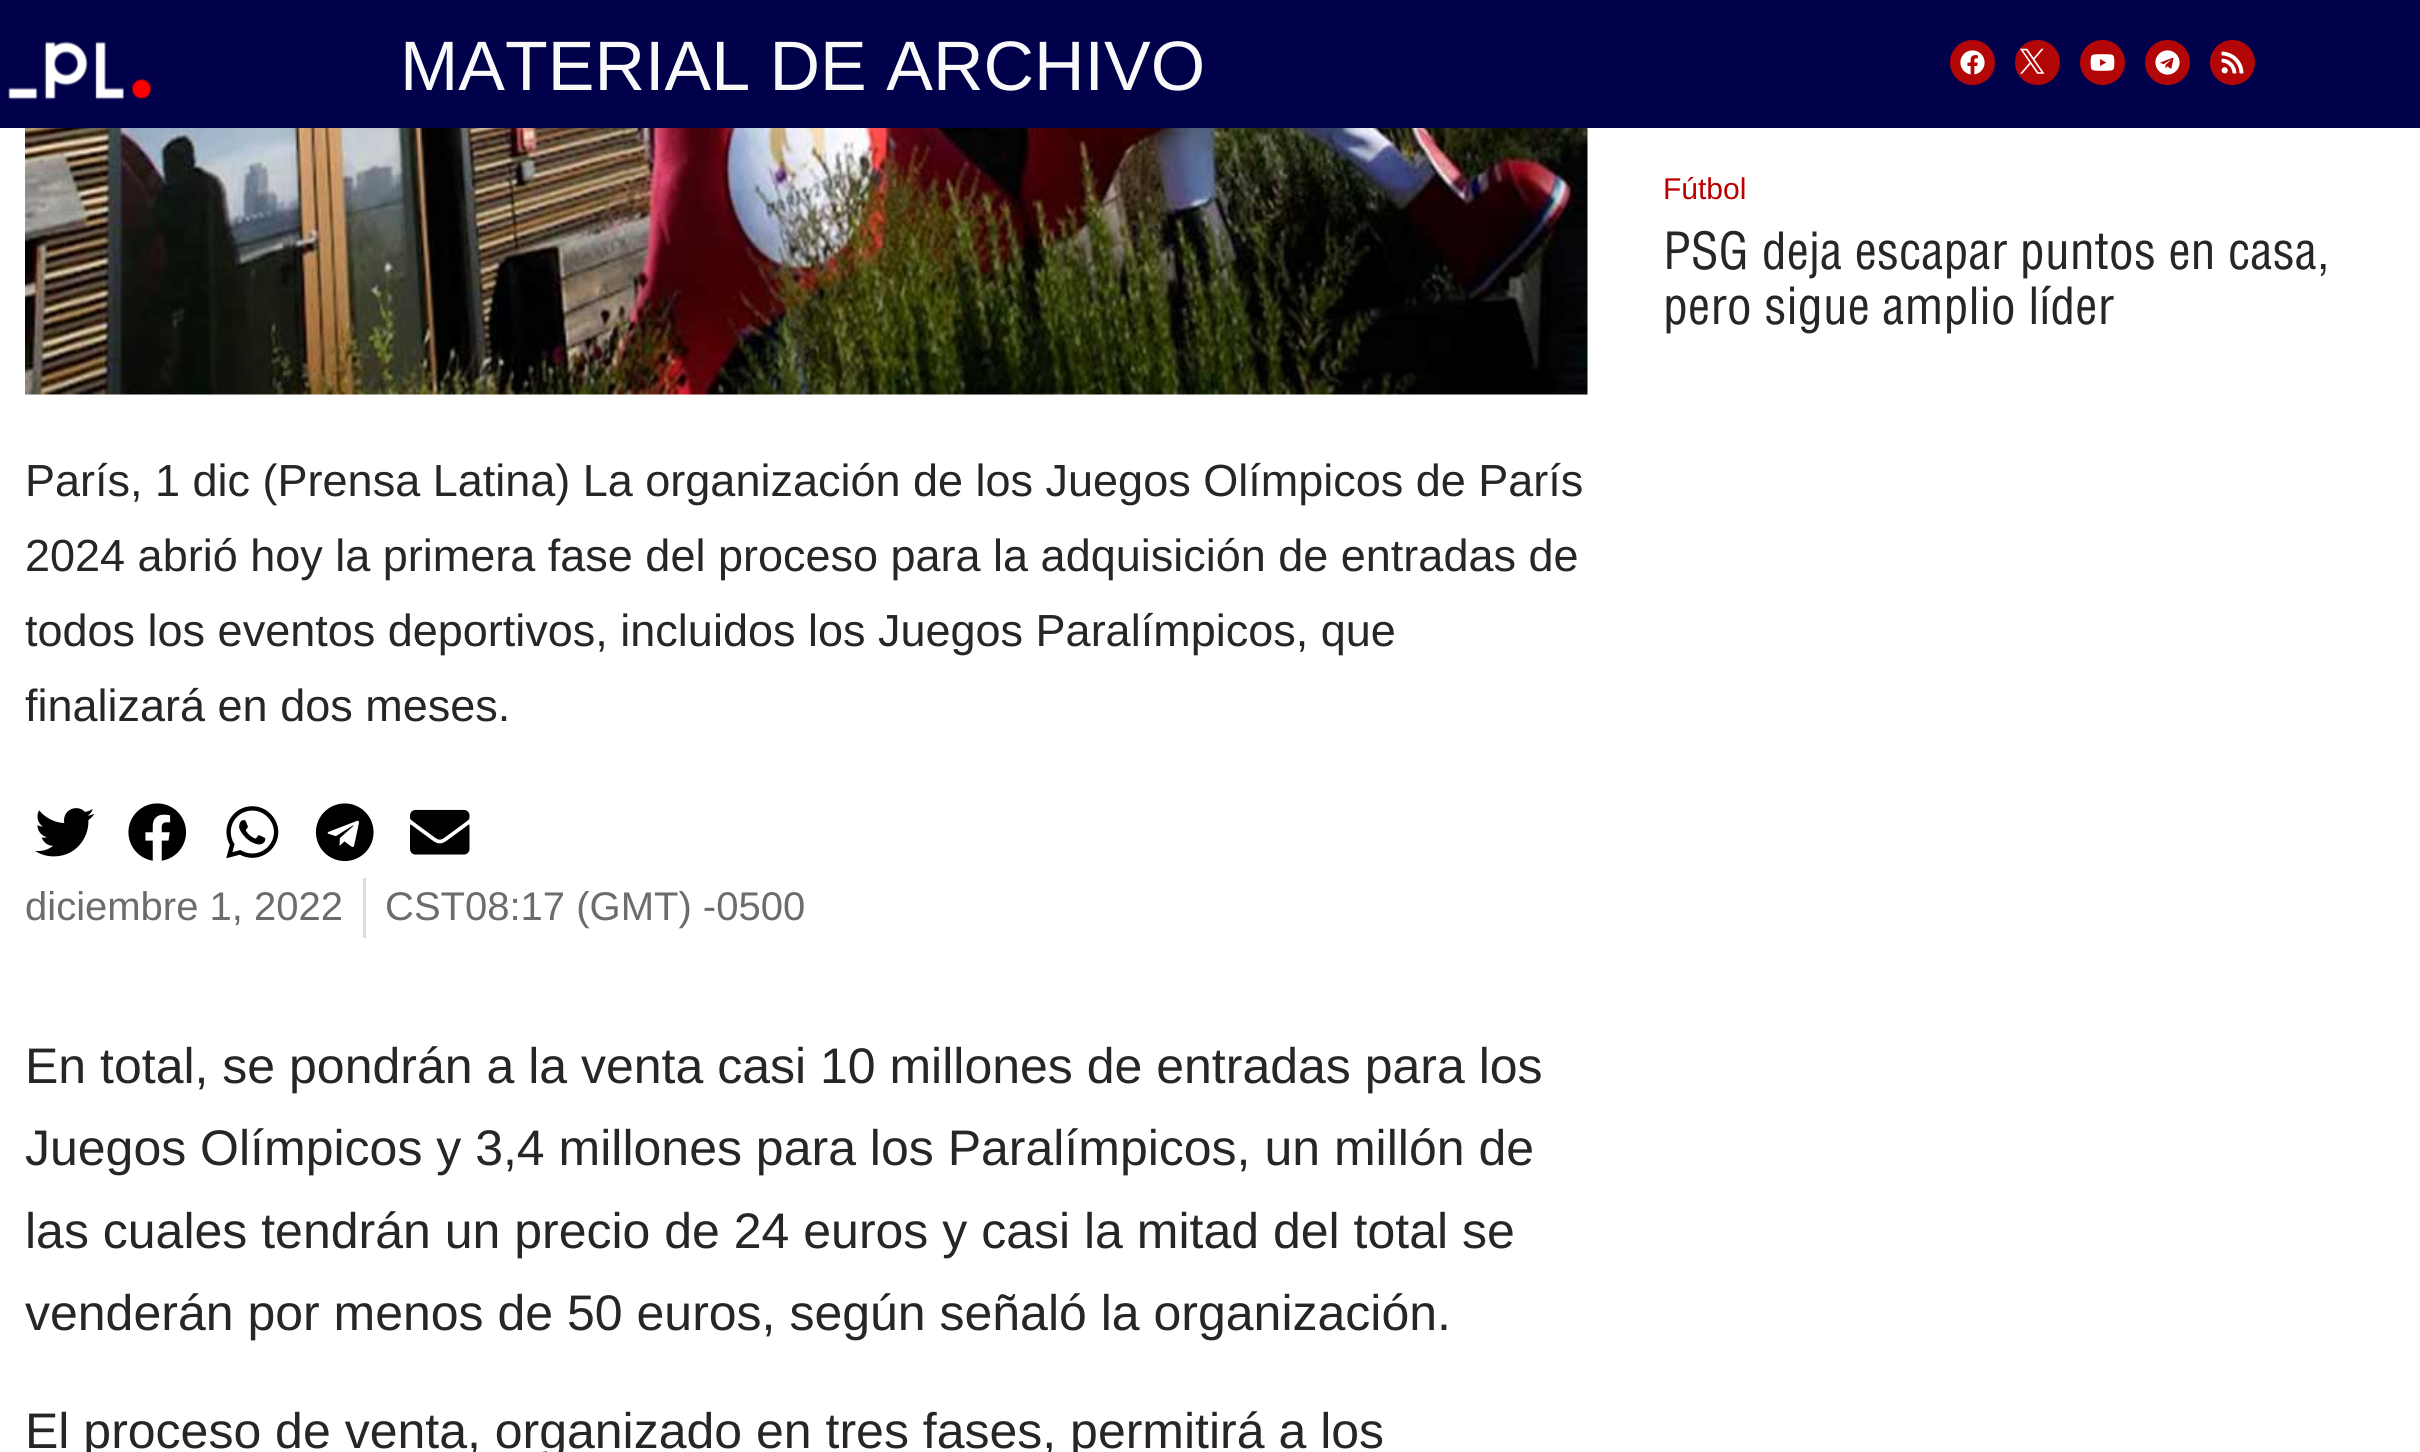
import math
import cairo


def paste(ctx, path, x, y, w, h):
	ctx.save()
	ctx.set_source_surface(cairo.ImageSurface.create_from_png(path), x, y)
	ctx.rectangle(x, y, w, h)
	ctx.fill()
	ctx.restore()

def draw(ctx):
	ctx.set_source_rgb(1, 1, 1)
	ctx.paint()
	ctx.set_source_rgb(0, 0, 0.294)
	ctx.rectangle(0, 0, 2420, 128)
	ctx.fill()
	paste(ctx, 'media/1.png', 8, 41, 144, 59)
	ctx.set_source_rgb(0.702, 0.031, 0.031)
	ctx.arc(1972.5, 62.5, 22.5, 0, 2 * math.pi)
	ctx.fill()
	paste(ctx, 'media/2.png', 1960, 50, 25, 25)
	ctx.arc(2037.5, 62.5, 22.5, 0, 2 * math.pi)
	ctx.fill()
	paste(ctx, 'media/3.png', 2020, 48, 25, 26)
	ctx.arc(2102.5, 62.5, 22.5, 0, 2 * math.pi)
	ctx.fill()
	paste(ctx, 'media/4.png', 2090, 54, 25, 17)
	ctx.arc(2167.5, 62.5, 22.5, 0, 2 * math.pi)
	ctx.fill()
	paste(ctx, 'media/5.png', 2155, 50, 25, 25)
	ctx.arc(2232.5, 62.5, 22.5, 0, 2 * math.pi)
	ctx.fill()
	paste(ctx, 'media/6.png', 2221, 51, 23, 23)
	ctx.select_font_face('Liberation Sans')
	ctx.set_font_size(70)
	ctx.set_source_rgb(0.976, 0.976, 0.976)
	ctx.move_to(400, 90)
	ctx.show_text('MATERIAL DE ARCHIVO')
	ctx.set_font_size(30)
	ctx.set_source_rgb(0.733, 0, 0)
	ctx.move_to(1663, 199)
	ctx.show_text('Fútbol')
	ctx.select_font_face('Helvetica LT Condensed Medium')
	ctx.set_font_size(50)
	ctx.set_source_rgb(0.149, 0.149, 0.149)
	ctx.move_to(1663, 269)
	ctx.show_text('PSG deja escapar puntos en casa,')
	ctx.move_to(1663, 324)
	ctx.show_text('pero sigue amplio líder')
	paste(ctx, 'media/7.png', 25, 128, 1563, 267)
	ctx.select_font_face('Liberation Sans')
	ctx.set_font_size(45)
	for x, y, s in [
		(25, 496, 'París, 1 dic (Prensa Latina) La organización de los Juegos Olímpicos de París'),
		(25, 571, '2024 abrió hoy la primera fase del proceso para la adquisición de entradas de'),
		(25, 646, 'todos los eventos deportivos, incluidos los Juegos Paralímpicos, que'),
		(25, 721, 'finalizará en dos meses.'),
	]:
		ctx.move_to(x, y)
		ctx.show_text(s)
	paste(ctx, 'media/8.png', 35, 808, 60, 49)
	paste(ctx, 'media/9.png', 128, 803, 59, 58)
	paste(ctx, 'media/10.png', 226, 806, 53, 53)
	paste(ctx, 'media/11.png', 315, 803, 59, 59)
	paste(ctx, 'media/12.png', 410, 809, 60, 46)
	ctx.set_font_size(40)
	ctx.set_source_rgb(0.424, 0.424, 0.424)
	ctx.move_to(25, 920)
	ctx.show_text('diciembre 1, 2022')
	ctx.set_source_rgb(0.867, 0.867, 0.867)
	ctx.rectangle(363, 878, 3, 60)
	ctx.fill()
	ctx.set_source_rgb(0.424, 0.424, 0.424)
	ctx.move_to(385, 920)
	ctx.show_text('CST08:17 (GMT) -0500')
	ctx.set_font_size(50)
	ctx.set_source_rgb(0.149, 0.149, 0.149)
	for x, y, s in [
		(25, 1083, 'En total, se pondrán a la venta casi 10 millones de entradas para los'),
		(25, 1165, 'Juegos Olímpicos y 3,4 millones para los Paralímpicos, un millón de'),
		(25, 1248, 'las cuales tendrán un precio de 24 euros y casi la mitad del total se'),
		(25, 1330, 'venderán por menos de 50 euros, según señaló la organización.'),
		(25, 1448, 'El proceso de venta, organizado en tres fases, permitirá a los'),
	]:
		ctx.move_to(x, y)
		ctx.show_text(s)


surface = cairo.ImageSurface(cairo.FORMAT_RGB24, 2420, 1452)
ctx = cairo.Context(surface)
options = cairo.FontOptions()
options.set_hint_metrics(cairo.HINT_METRICS_OFF)
options.set_hint_style(cairo.HINT_STYLE_NONE)
ctx.set_font_options(options)
ctx.set_miter_limit(4)
draw(ctx)
surface.write_to_png('image.png')
